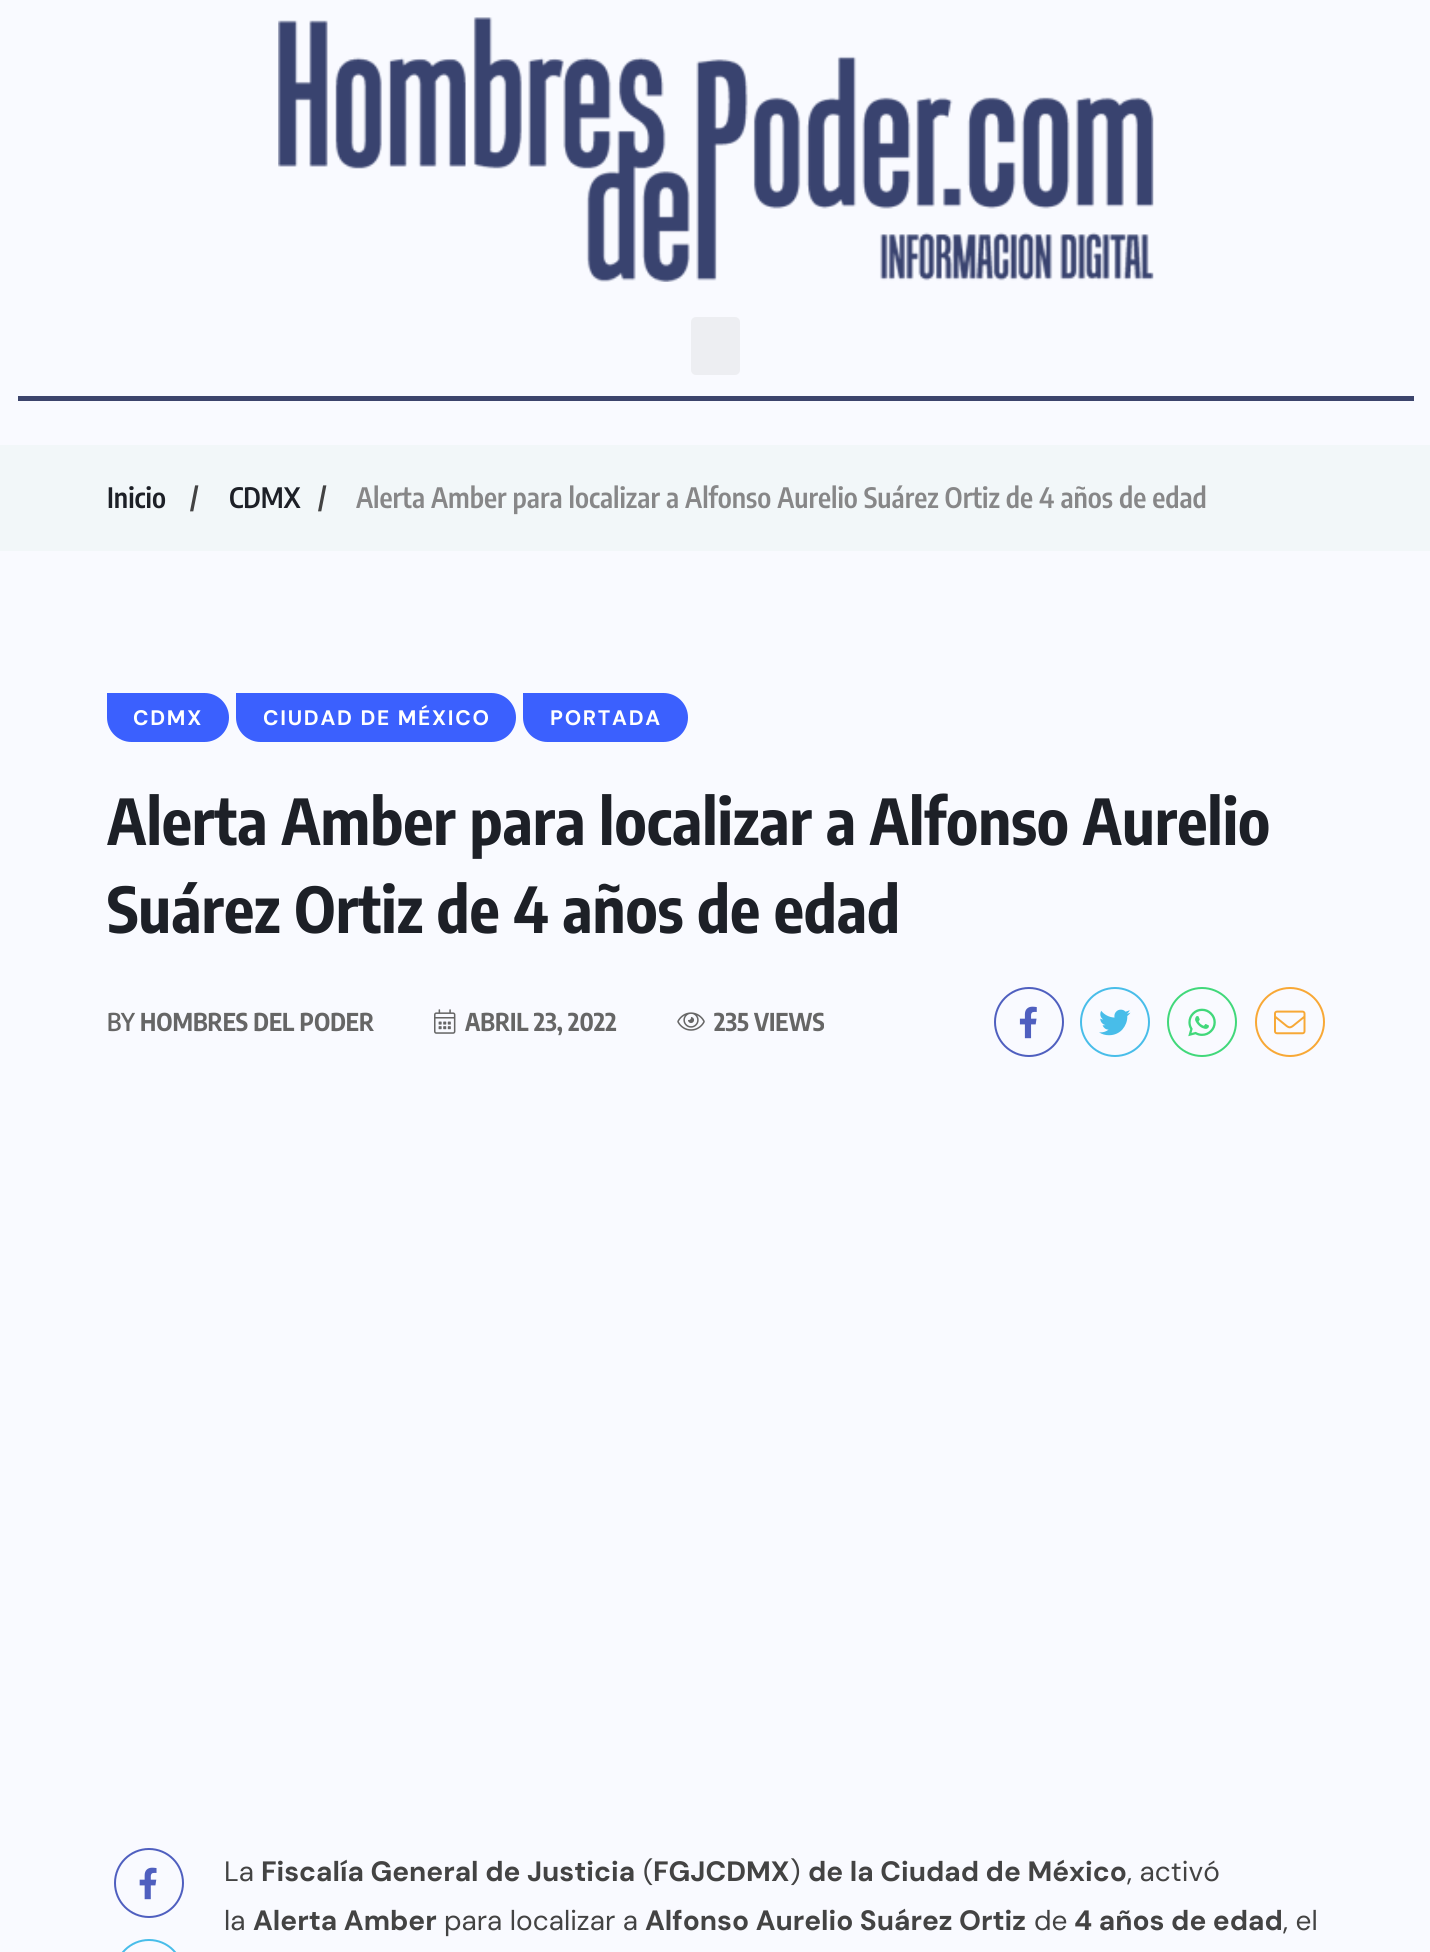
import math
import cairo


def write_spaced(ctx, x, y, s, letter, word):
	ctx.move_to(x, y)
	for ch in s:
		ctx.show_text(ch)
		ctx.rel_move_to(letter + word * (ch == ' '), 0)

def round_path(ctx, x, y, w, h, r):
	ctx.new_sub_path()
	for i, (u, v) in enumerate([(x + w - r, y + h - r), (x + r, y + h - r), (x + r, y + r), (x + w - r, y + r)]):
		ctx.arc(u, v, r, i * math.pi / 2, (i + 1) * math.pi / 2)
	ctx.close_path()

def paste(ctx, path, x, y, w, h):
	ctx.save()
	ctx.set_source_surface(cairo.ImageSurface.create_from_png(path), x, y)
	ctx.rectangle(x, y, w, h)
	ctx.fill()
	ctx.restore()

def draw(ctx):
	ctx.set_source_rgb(0.976, 0.98, 1)
	ctx.paint()
	paste(ctx, 'media/1.png', 278, 17, 876, 265)
	ctx.set_source_rgb(0.929, 0.933, 0.949)
	round_path(ctx, 691, 317, 49, 58, 5)
	ctx.fill()
	ctx.set_source_rgb(0.235, 0.267, 0.424)
	ctx.rectangle(18, 396, 1396, 5)
	ctx.fill()
	ctx.set_source_rgb(0.949, 0.965, 0.976)
	ctx.rectangle(0, 445, 1430, 106)
	ctx.fill()
	ctx.select_font_face('Encode Sans Condensed SemiBold')
	ctx.set_font_size(28)
	ctx.set_source_rgb(0.114, 0.125, 0.153)
	ctx.move_to(107, 508)
	ctx.show_text('Inicio')
	ctx.set_source_rgb(0.263, 0.263, 0.263)
	ctx.move_to(190, 508)
	ctx.show_text('/')
	ctx.set_source_rgb(0.114, 0.125, 0.153)
	ctx.move_to(229, 508)
	ctx.show_text('CDMX')
	ctx.set_source_rgb(0.263, 0.263, 0.263)
	ctx.move_to(318, 508)
	ctx.show_text('/')
	ctx.set_source_rgb(0.529, 0.529, 0.533)
	ctx.move_to(356, 508)
	ctx.show_text('Alerta Amber para localizar a Alfonso Aurelio Suárez Ortiz de 4 años de edad')
	ctx.set_source_rgb(0.231, 0.376, 0.996)
	ctx.new_path()
	ctx.move_to(107, 693)
	ctx.line_to(204.5, 693)
	ctx.curve_to(218, 693, 229, 704, 229, 717.5)
	ctx.curve_to(229, 731, 218, 742, 204.5, 742)
	ctx.line_to(131.5, 742)
	ctx.curve_to(118, 742, 107, 731, 107, 717.5)
	ctx.close_path()
	ctx.fill()
	ctx.select_font_face('DM Sans', cairo.FONT_SLANT_NORMAL, cairo.FONT_WEIGHT_BOLD)
	ctx.set_font_size(21)
	ctx.set_source_rgb(1, 1, 1)
	write_spaced(ctx, 133, 725, 'CDMX', 1.75, 0)
	ctx.set_source_rgb(0.231, 0.376, 0.996)
	ctx.new_path()
	ctx.move_to(236, 693)
	ctx.line_to(491.5, 693)
	ctx.curve_to(505, 693, 516, 704, 516, 717.5)
	ctx.curve_to(516, 731, 505, 742, 491.5, 742)
	ctx.line_to(260.5, 742)
	ctx.curve_to(247, 742, 236, 731, 236, 717.5)
	ctx.close_path()
	ctx.fill()
	ctx.set_source_rgb(1, 1, 1)
	write_spaced(ctx, 263, 725, 'CIUDAD DE MÉXICO', 1.75, 0)
	ctx.set_source_rgb(0.231, 0.376, 0.996)
	ctx.new_path()
	ctx.move_to(523, 693)
	ctx.line_to(663.5, 693)
	ctx.curve_to(677, 693, 688, 704, 688, 717.5)
	ctx.curve_to(688, 731, 677, 742, 663.5, 742)
	ctx.line_to(547.5, 742)
	ctx.curve_to(534, 742, 523, 731, 523, 717.5)
	ctx.close_path()
	ctx.fill()
	ctx.set_source_rgb(1, 1, 1)
	write_spaced(ctx, 550, 725, 'PORTADA', 1.75, 0)
	ctx.select_font_face('Encode Sans Condensed', cairo.FONT_SLANT_NORMAL, cairo.FONT_WEIGHT_BOLD)
	ctx.set_font_size(63)
	ctx.set_source_rgb(0.114, 0.125, 0.153)
	ctx.move_to(107, 845)
	ctx.show_text('Alerta Amber para localizar a Alfonso Aurelio')
	ctx.move_to(107, 933)
	ctx.show_text('Suárez Ortiz de 4 años de edad')
	ctx.select_font_face('Encode Sans Condensed SemiBold')
	ctx.set_font_size(24.5)
	ctx.set_source_rgb(0.4, 0.4, 0.4)
	ctx.move_to(107, 1031)
	ctx.show_text('BY')
	ctx.select_font_face('Encode Sans Condensed', cairo.FONT_SLANT_NORMAL, cairo.FONT_WEIGHT_BOLD)
	ctx.move_to(140, 1031)
	ctx.show_text('HOMBRES DEL PODER')
	paste(ctx, 'media/2.png', 434, 1009, 22, 25)
	ctx.move_to(465, 1031)
	ctx.show_text('ABRIL 23, 2022')
	paste(ctx, 'media/3.png', 677, 1012, 28, 19)
	ctx.move_to(714, 1031)
	ctx.show_text('235 VIEWS')
	ctx.new_path()
	ctx.arc(1029, 1022, 34, 0, 2 * math.pi)
	ctx.set_source_rgb(0.31, 0.373, 0.749)
	ctx.stroke()
	paste(ctx, 'media/4.png', 1019, 1006, 18, 33)
	ctx.arc(1115, 1022, 34, 0, 2 * math.pi)
	ctx.set_source_rgb(0.282, 0.741, 0.914)
	ctx.stroke()
	paste(ctx, 'media/5.png', 1099, 1009, 32, 27)
	ctx.arc(1202, 1022, 34, 0, 2 * math.pi)
	ctx.set_source_rgb(0.255, 0.847, 0.478)
	ctx.stroke()
	paste(ctx, 'media/6.png', 1188, 1008, 28, 29)
	ctx.arc(1290, 1022, 34, 0, 2 * math.pi)
	ctx.set_source_rgb(0.969, 0.659, 0.212)
	ctx.stroke()
	paste(ctx, 'media/7.png', 1274, 1010, 32, 25)
	ctx.arc(149, 1883, 34, 0, 2 * math.pi)
	ctx.set_source_rgb(0.31, 0.373, 0.749)
	ctx.stroke()
	paste(ctx, 'media/8.png', 139, 1867, 18, 33)
	round_path(ctx, 115, 1940, 68, 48, 34)
	ctx.set_source_rgb(0.282, 0.741, 0.914)
	ctx.stroke()
	ctx.select_font_face('DM Sans')
	ctx.set_font_size(28)
	ctx.set_source_rgb(0.263, 0.263, 0.263)
	ctx.move_to(224, 1881)
	ctx.show_text('La')
	ctx.select_font_face('DM Sans', cairo.FONT_SLANT_NORMAL, cairo.FONT_WEIGHT_BOLD)
	ctx.move_to(261, 1881)
	ctx.show_text('Fiscalía General de Justicia')
	ctx.select_font_face('DM Sans')
	ctx.move_to(643, 1881)
	ctx.show_text('(')
	ctx.select_font_face('DM Sans', cairo.FONT_SLANT_NORMAL, cairo.FONT_WEIGHT_BOLD)
	ctx.move_to(653, 1881)
	ctx.show_text('FGJCDMX')
	ctx.select_font_face('DM Sans')
	ctx.move_to(790, 1881)
	ctx.show_text(')')
	ctx.select_font_face('DM Sans', cairo.FONT_SLANT_NORMAL, cairo.FONT_WEIGHT_BOLD)
	ctx.move_to(808, 1881)
	ctx.show_text('de la Ciudad de México')
	ctx.select_font_face('DM Sans')
	ctx.move_to(1127, 1881)
	ctx.show_text(', activó')
	ctx.move_to(224, 1930)
	ctx.show_text('la')
	ctx.select_font_face('DM Sans', cairo.FONT_SLANT_NORMAL, cairo.FONT_WEIGHT_BOLD)
	ctx.move_to(253, 1930)
	ctx.show_text('Alerta Amber')
	ctx.select_font_face('DM Sans')
	ctx.move_to(444, 1930)
	ctx.show_text('para localizar a')
	ctx.select_font_face('DM Sans', cairo.FONT_SLANT_NORMAL, cairo.FONT_WEIGHT_BOLD)
	ctx.move_to(645, 1930)
	ctx.show_text('Alfonso Aurelio Suárez Ortiz')
	ctx.select_font_face('DM Sans')
	ctx.move_to(1034, 1930)
	ctx.show_text('de')
	ctx.select_font_face('DM Sans', cairo.FONT_SLANT_NORMAL, cairo.FONT_WEIGHT_BOLD)
	ctx.move_to(1074, 1930)
	ctx.show_text('4 años de edad')
	ctx.select_font_face('DM Sans')
	ctx.move_to(1283, 1930)
	ctx.show_text(', el')


surface = cairo.ImageSurface(cairo.FORMAT_RGB24, 1430, 1952)
ctx = cairo.Context(surface)
options = cairo.FontOptions()
options.set_hint_metrics(cairo.HINT_METRICS_OFF)
options.set_hint_style(cairo.HINT_STYLE_NONE)
ctx.set_font_options(options)
ctx.set_miter_limit(4)
draw(ctx)
surface.write_to_png('image.png')
